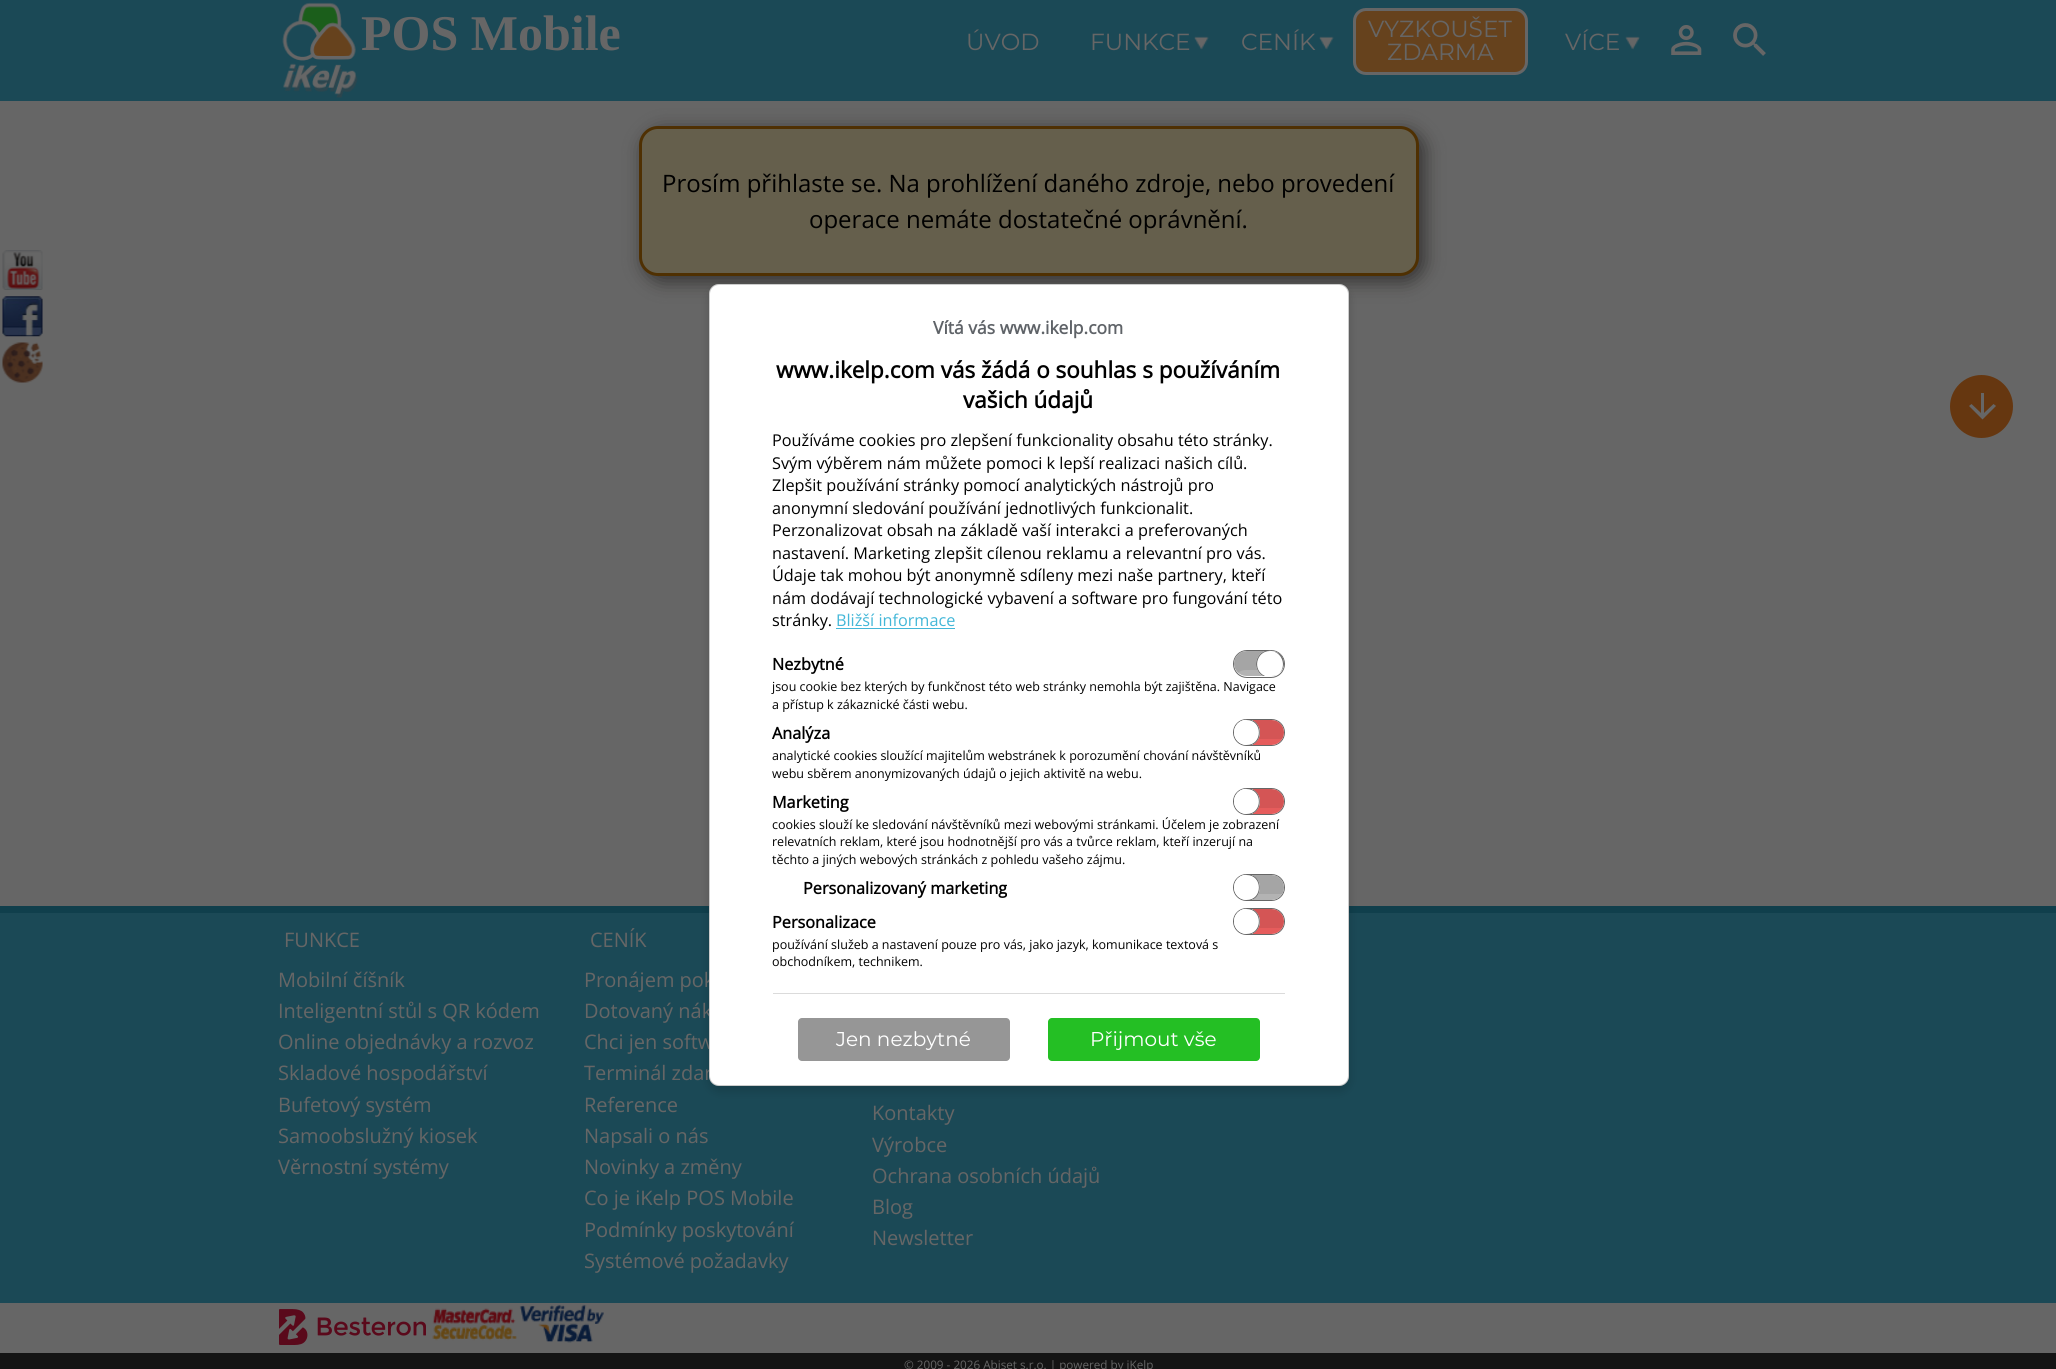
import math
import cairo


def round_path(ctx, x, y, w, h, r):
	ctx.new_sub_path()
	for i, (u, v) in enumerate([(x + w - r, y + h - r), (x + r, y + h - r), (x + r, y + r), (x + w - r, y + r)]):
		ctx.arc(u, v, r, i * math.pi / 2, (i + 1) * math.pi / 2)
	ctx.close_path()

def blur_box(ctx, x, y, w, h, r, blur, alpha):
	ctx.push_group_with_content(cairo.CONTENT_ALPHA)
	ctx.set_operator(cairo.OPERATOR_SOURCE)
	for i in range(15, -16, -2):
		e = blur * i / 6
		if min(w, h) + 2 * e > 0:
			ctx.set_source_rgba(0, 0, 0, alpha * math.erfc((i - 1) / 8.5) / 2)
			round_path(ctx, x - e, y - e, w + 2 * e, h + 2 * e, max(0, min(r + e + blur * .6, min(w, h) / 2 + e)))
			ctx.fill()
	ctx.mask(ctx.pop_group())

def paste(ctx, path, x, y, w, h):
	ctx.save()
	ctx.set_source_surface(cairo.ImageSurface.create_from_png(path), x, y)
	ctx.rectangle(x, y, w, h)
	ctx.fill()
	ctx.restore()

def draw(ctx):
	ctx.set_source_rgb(0.4, 0.4, 0.4)
	ctx.paint()
	ctx.set_source_rgb(0.106, 0.286, 0.337)
	ctx.rectangle(0, 0, 2056, 101)
	ctx.fill()
	paste(ctx, 'media/1.png', 282, 2, 76, 96)
	ctx.select_font_face('Liberation Serif', cairo.FONT_SLANT_NORMAL, cairo.FONT_WEIGHT_BOLD)
	ctx.set_font_size(50)
	ctx.set_source_rgb(0.4, 0.4, 0.4)
	ctx.move_to(361, 50)
	ctx.show_text('POS Mobile')
	ctx.select_font_face('Montserrat Thin')
	ctx.set_font_size(23.25)
	ctx.move_to(966, 50)
	ctx.show_text('ÚVOD')
	paste(ctx, 'media/2.png', 1194, 36, 15, 14)
	ctx.move_to(1090, 50)
	ctx.show_text('FUNKCE')
	paste(ctx, 'media/2.png', 1319, 36, 15, 14)
	ctx.move_to(1241, 50)
	ctx.show_text('CENÍK')
	ctx.set_source_rgb(0.4, 0.259, 0.114)
	round_path(ctx, 1354.5, 9.5, 172, 64, 11.5)
	ctx.fill_preserve()
	ctx.set_source_rgb(0.4, 0.4, 0.4)
	ctx.set_line_width(3)
	ctx.stroke()
	ctx.move_to(1368, 37)
	ctx.show_text('VYZKOUŠET')
	ctx.move_to(1387, 60)
	ctx.show_text('ZDARMA')
	paste(ctx, 'media/3.png', 1625, 36, 15, 14)
	ctx.move_to(1565, 50)
	ctx.show_text('VÍCE')
	paste(ctx, 'media/4.png', 1671, 25, 31, 30)
	paste(ctx, 'media/5.png', 1733, 23, 33, 33)
	ctx.set_source_rgb(0.196, 0.188, 0.184)
	blur_box(ctx, 644, 131, 780, 150, 19, 9.5, 1)
	ctx.set_source_rgb(0.396, 0.373, 0.298)
	round_path(ctx, 640.5, 127.5, 777, 147, 17.5)
	ctx.fill_preserve()
	ctx.set_source_rgb(0.31, 0.188, 0.008)
	ctx.stroke()
	ctx.select_font_face('Open Sans')
	ctx.set_font_size(24)
	ctx.set_source_rgb(0, 0, 0)
	ctx.move_to(662, 192)
	ctx.show_text('Prosím přihlaste se. Na prohlížení daného zdroje, nebo provedení')
	ctx.move_to(809, 228)
	ctx.show_text('operace nemáte dostatečné oprávnění.')
	ctx.set_source_rgb(0.4, 0.216, 0.063)
	ctx.new_path()
	ctx.arc(1981.5, 406.5, 31.5, 0, 2 * math.pi)
	ctx.fill()
	ctx.set_source_rgb(0.4, 0.4, 0.4)
	ctx.new_path()
	ctx.move_to(1996, 406)
	ctx.line_to(1982.5, 419.5)
	ctx.line_to(1969, 406)
	ctx.line_to(1971.5, 404)
	ctx.line_to(1981, 413)
	ctx.line_to(1981, 393)
	ctx.line_to(1984, 393)
	ctx.line_to(1984, 413)
	ctx.line_to(1993.5, 404)
	ctx.close_path()
	ctx.fill()
	ctx.set_source_rgb(0.106, 0.286, 0.337)
	ctx.rectangle(0, 913, 2056, 390)
	ctx.fill()
	ctx.set_source_rgb(0.063, 0.247, 0.298)
	ctx.rectangle(0, 906, 2056, 7)
	ctx.fill()
	paste(ctx, 'media/6.png', 2, 250, 41, 40)
	paste(ctx, 'media/7.png', 2, 296, 41, 41)
	paste(ctx, 'media/8.png', 2, 342, 41, 41)
	ctx.set_source_rgb(0, 0, 0)
	blur_box(ctx, 709, 289, 640, 802, 10, 5, 0.16)
	ctx.set_font_size(20)
	ctx.set_source_rgb(0.4, 0.4, 0.4)
	for x, y, s in [
		(584, 987, 'Pronájem pok'),
		(584, 1018, 'Dotovaný nák'),
		(584, 1049, 'Chci jen softw'),
		(584, 1080, 'Terminál zdar'),
	]:
		ctx.move_to(x, y)
		ctx.show_text(s)
	ctx.set_source_rgb(1, 1, 1)
	round_path(ctx, 709, 284, 640, 802, 10)
	ctx.fill()
	round_path(ctx, 709.5, 284.5, 639, 801, 9.5)
	ctx.set_source_rgba(0, 0, 0, 0.2)
	ctx.set_line_width(1)
	ctx.stroke()
	ctx.select_font_face('Open Sans', cairo.FONT_SLANT_NORMAL, cairo.FONT_WEIGHT_BOLD)
	ctx.set_font_size(17.5)
	ctx.set_source_rgb(0.373, 0.388, 0.408)
	ctx.move_to(933, 334)
	ctx.show_text('Vítá vás www.ikelp.com')
	ctx.set_font_size(22.5)
	ctx.set_source_rgb(0, 0, 0)
	ctx.move_to(776, 378)
	ctx.show_text('www.ikelp.com vás žádá o souhlas s používáním')
	ctx.move_to(963, 408)
	ctx.show_text('vašich údajů')
	ctx.select_font_face('Open Sans')
	ctx.set_font_size(16.25)
	for x, y, s in [
		(772, 446, 'Používáme cookies pro zlepšení funkcionality obsahu této stránky.'),
		(772, 469, 'Svým výběrem nám můžete pomoci k lepší realizaci našich cílů.'),
		(772, 491, 'Zlepšit používání stránky pomocí analytických nástrojů pro'),
		(772, 514, 'anonymní sledování používání jednotlivých funkcionalit.'),
		(772, 536, 'Perzonalizovat obsah na základě vaší interakci a preferovaných'),
		(772, 559, 'nastavení. Marketing zlepšit cílenou reklamu a relevantní pro vás.'),
		(772, 581, 'Údaje tak mohou být anonymně sdíleny mezi naše partnery, kteří'),
		(772, 604, 'nám dodávají technologické vybavení a software pro fungování této'),
		(772, 626, 'stránky.'),
	]:
		ctx.move_to(x, y)
		ctx.show_text(s)
	ctx.set_source_rgb(0.263, 0.718, 0.847)
	ctx.move_to(836, 626)
	ctx.show_text('Bližší informace')
	ctx.rectangle(836, 628, 119, 1)
	ctx.fill()
	ctx.select_font_face('Open Sans', cairo.FONT_SLANT_NORMAL, cairo.FONT_WEIGHT_BOLD)
	ctx.set_source_rgb(0, 0, 0)
	ctx.move_to(772, 670)
	ctx.show_text('Nezbytné')
	round_path(ctx, 1233.5, 650.5, 51, 27, 13.5)
	ctx.set_source_rgb(0.4, 0.4, 0.4)
	ctx.stroke()
	ctx.save()
	round_path(ctx, 1234, 651, 50, 25, 12.5)
	ctx.clip()
	ctx.set_source_rgb(0.702, 0.702, 0.702)
	ctx.new_path()
	ctx.move_to(1246.5, 651)
	ctx.line_to(1276, 651)
	ctx.line_to(1276, 676)
	ctx.line_to(1246.5, 676)
	ctx.curve_to(1239.5, 676, 1234, 670.5, 1234, 663.5)
	ctx.curve_to(1234, 656.5, 1239.5, 651, 1246.5, 651)
	ctx.close_path()
	ctx.fill()
	ctx.restore()
	ctx.set_source_rgba(0, 0, 0, 0.08)
	ctx.new_path()
	ctx.move_to(1246, 670)
	ctx.curve_to(1243, 670, 1240, 671, 1238, 673)
	ctx.curve_to(1236, 671, 1234, 667, 1234, 664)
	ctx.curve_to(1235, 649, 1249, 651, 1259, 651)
	ctx.curve_to(1264, 651, 1271, 650, 1276, 652)
	ctx.line_to(1276, 670)
	ctx.close_path()
	ctx.fill()
	ctx.save()
	round_path(ctx, 1234, 651, 50, 25, 12.5)
	ctx.clip()
	ctx.set_source_rgb(1, 1, 1)
	ctx.arc(1270, 664, 14, 0, 2 * math.pi)
	ctx.fill()
	ctx.restore()
	ctx.set_source_rgb(1, 1, 1)
	ctx.new_path()
	ctx.move_to(1270, 652)
	ctx.curve_to(1262.5, 652, 1258.5, 658, 1258, 664)
	ctx.curve_to(1258, 660.5, 1259, 657, 1261.5, 654.5)
	ctx.curve_to(1272, 644, 1288.5, 658, 1281, 670)
	ctx.curve_to(1284, 662.5, 1280, 652, 1270, 652)
	ctx.close_path()
	ctx.fill()
	ctx.set_source_rgb(0.4, 0.4, 0.4)
	ctx.set_fill_rule(cairo.FILL_RULE_EVEN_ODD)
	ctx.new_path()
	ctx.move_to(1270, 651)
	ctx.curve_to(1256, 651, 1252, 670.5, 1265, 676)
	ctx.line_to(1263, 676)
	ctx.curve_to(1253, 670, 1254, 655.5, 1265, 651)
	ctx.close_path()
	ctx.move_to(1284, 663.5)
	ctx.curve_to(1284, 668, 1281.5, 671.5, 1278.5, 674)
	ctx.curve_to(1287.5, 666.5, 1282, 651, 1270, 651)
	ctx.curve_to(1278, 651, 1284, 655.5, 1284, 663.5)
	ctx.close_path()
	ctx.fill()
	ctx.select_font_face('Open Sans')
	ctx.set_font_size(12.5)
	ctx.set_source_rgb(0, 0, 0)
	ctx.move_to(772, 691)
	ctx.show_text('jsou cookie bez kterých by funkčnost této web stránky nemohla být zajištěna. Navigace')
	ctx.move_to(772, 709)
	ctx.show_text('a přístup k zákaznické části webu.')
	ctx.select_font_face('Open Sans', cairo.FONT_SLANT_NORMAL, cairo.FONT_WEIGHT_BOLD)
	ctx.set_font_size(16.25)
	ctx.move_to(772, 739)
	ctx.show_text('Analýza')
	round_path(ctx, 1233.5, 719.5, 51, 26, 13)
	ctx.set_source_rgb(0.4, 0.4, 0.4)
	ctx.stroke()
	ctx.save()
	ctx.set_fill_rule(cairo.FILL_RULE_WINDING)
	round_path(ctx, 1234, 720, 50, 25, 12.5)
	ctx.clip()
	ctx.set_source_rgb(0.902, 0.361, 0.361)
	ctx.new_path()
	ctx.move_to(1253, 720)
	ctx.line_to(1282.5, 720)
	ctx.curve_to(1289.5, 720, 1295, 725.5, 1295, 732.5)
	ctx.curve_to(1295, 739.5, 1289.5, 745, 1282.5, 745)
	ctx.line_to(1253, 745)
	ctx.close_path()
	ctx.fill()
	ctx.restore()
	ctx.set_source_rgba(0, 0, 0, 0.08)
	ctx.set_fill_rule(cairo.FILL_RULE_WINDING)
	ctx.new_path()
	ctx.move_to(1253, 720)
	ctx.line_to(1253, 739)
	ctx.line_to(1282, 739)
	ctx.curve_to(1283.5, 737, 1284, 735, 1284, 732.5)
	ctx.curve_to(1284, 725.5, 1278.5, 720, 1271.5, 720)
	ctx.close_path()
	ctx.fill()
	ctx.save()
	round_path(ctx, 1234, 720, 50, 25, 12.5)
	ctx.clip()
	ctx.set_source_rgb(1, 1, 1)
	ctx.arc(1246.5, 732.5, 13.5, 0, 2 * math.pi)
	ctx.fill()
	ctx.restore()
	ctx.set_source_rgb(1, 1, 1)
	ctx.new_path()
	ctx.move_to(1246, 721)
	ctx.curve_to(1238, 721, 1234, 727, 1234, 733)
	ctx.curve_to(1234, 730.5, 1234.5, 727.5, 1236, 725.5)
	ctx.curve_to(1244, 713.5, 1262, 722.5, 1258.5, 736)
	ctx.curve_to(1259.5, 729, 1255.5, 721, 1246, 721)
	ctx.close_path()
	ctx.fill()
	ctx.set_source_rgb(0.4, 0.4, 0.4)
	ctx.new_path()
	ctx.move_to(1246.5, 720)
	ctx.line_to(1251.5, 720)
	ctx.curve_to(1262.5, 723.5, 1262.5, 741.5, 1251.5, 745)
	ctx.line_to(1246.5, 745)
	ctx.curve_to(1263, 745, 1263, 720, 1246.5, 720)
	ctx.close_path()
	ctx.fill()
	ctx.select_font_face('Open Sans')
	ctx.set_font_size(12.5)
	ctx.set_source_rgb(0, 0, 0)
	ctx.move_to(772, 760)
	ctx.show_text('analytické cookies sloužící majitelům webstránek k porozumění chování návštěvníků')
	ctx.move_to(772, 778)
	ctx.show_text('webu sběrem anonymizovaných údajů o jejich aktivitě na webu.')
	ctx.select_font_face('Open Sans', cairo.FONT_SLANT_NORMAL, cairo.FONT_WEIGHT_BOLD)
	ctx.set_font_size(16.25)
	ctx.move_to(772, 808)
	ctx.show_text('Marketing')
	round_path(ctx, 1233.5, 788.5, 51, 26, 13)
	ctx.set_source_rgb(0.4, 0.4, 0.4)
	ctx.stroke()
	ctx.save()
	round_path(ctx, 1234, 789, 50, 25, 12.5)
	ctx.clip()
	ctx.set_source_rgb(0.902, 0.361, 0.361)
	ctx.new_path()
	ctx.move_to(1253, 789)
	ctx.line_to(1282.5, 789)
	ctx.curve_to(1289.5, 789, 1295, 794.5, 1295, 801.5)
	ctx.curve_to(1295, 808.5, 1289.5, 814, 1282.5, 814)
	ctx.line_to(1253, 814)
	ctx.close_path()
	ctx.fill()
	ctx.restore()
	ctx.set_source_rgba(0, 0, 0, 0.08)
	ctx.new_path()
	ctx.move_to(1253, 789)
	ctx.line_to(1253, 808)
	ctx.line_to(1282, 808)
	ctx.curve_to(1283.5, 806, 1284, 804, 1284, 801.5)
	ctx.curve_to(1284, 794.5, 1278.5, 789, 1271.5, 789)
	ctx.close_path()
	ctx.fill()
	ctx.save()
	round_path(ctx, 1234, 789, 50, 25, 12.5)
	ctx.clip()
	ctx.set_source_rgb(1, 1, 1)
	ctx.arc(1246.5, 801.5, 13.5, 0, 2 * math.pi)
	ctx.fill()
	ctx.restore()
	ctx.set_source_rgb(1, 1, 1)
	ctx.new_path()
	ctx.move_to(1246, 790)
	ctx.curve_to(1238, 790, 1234, 796, 1234, 802)
	ctx.curve_to(1234, 799.5, 1234.5, 796.5, 1236, 794.5)
	ctx.curve_to(1244, 782.5, 1262, 791.5, 1258.5, 805)
	ctx.curve_to(1259.5, 798, 1255.5, 790, 1246, 790)
	ctx.close_path()
	ctx.fill()
	ctx.set_source_rgb(0.4, 0.4, 0.4)
	ctx.new_path()
	ctx.move_to(1246.5, 789)
	ctx.line_to(1251.5, 789)
	ctx.curve_to(1262.5, 792.5, 1262.5, 810.5, 1251.5, 814)
	ctx.line_to(1246.5, 814)
	ctx.curve_to(1263, 814, 1263, 789, 1246.5, 789)
	ctx.close_path()
	ctx.fill()
	ctx.select_font_face('Open Sans')
	ctx.set_font_size(12.5)
	ctx.set_source_rgb(0, 0, 0)
	for x, y, s in [
		(772, 829, 'cookies slouží ke sledování návštěvníků mezi webovými stránkami. Účelem je zobrazení'),
		(772, 846, 'relevatních reklam, které jsou hodnotnější pro vás a tvůrce reklam, kteří inzerují na'),
		(772, 864, 'těchto a jiných webových stránkách z pohledu vašeho zájmu.'),
	]:
		ctx.move_to(x, y)
		ctx.show_text(s)
	ctx.select_font_face('Open Sans', cairo.FONT_SLANT_NORMAL, cairo.FONT_WEIGHT_BOLD)
	ctx.set_font_size(16.25)
	ctx.move_to(803, 894)
	ctx.show_text('Personalizovaný marketing')
	round_path(ctx, 1233.5, 874.5, 51, 26, 13)
	ctx.set_source_rgb(0.4, 0.4, 0.4)
	ctx.stroke()
	ctx.save()
	round_path(ctx, 1234, 875, 50, 25, 12.5)
	ctx.clip()
	ctx.set_source_rgb(0.702, 0.702, 0.702)
	ctx.new_path()
	ctx.move_to(1253, 875)
	ctx.line_to(1282.5, 875)
	ctx.curve_to(1289.5, 875, 1295, 880.5, 1295, 887.5)
	ctx.curve_to(1295, 894.5, 1289.5, 900, 1282.5, 900)
	ctx.line_to(1253, 900)
	ctx.close_path()
	ctx.fill()
	ctx.restore()
	ctx.set_source_rgba(0, 0, 0, 0.08)
	ctx.new_path()
	ctx.move_to(1253, 875)
	ctx.line_to(1253, 894)
	ctx.line_to(1282, 894)
	ctx.curve_to(1283.5, 892, 1284, 890, 1284, 887.5)
	ctx.curve_to(1284, 880.5, 1278.5, 875, 1271.5, 875)
	ctx.close_path()
	ctx.fill()
	ctx.save()
	round_path(ctx, 1234, 875, 50, 25, 12.5)
	ctx.clip()
	ctx.set_source_rgb(1, 1, 1)
	ctx.arc(1246.5, 887.5, 13.5, 0, 2 * math.pi)
	ctx.fill()
	ctx.restore()
	ctx.set_source_rgb(1, 1, 1)
	ctx.new_path()
	ctx.move_to(1246, 876)
	ctx.curve_to(1238, 876, 1234, 882, 1234, 888)
	ctx.curve_to(1234, 885.5, 1234.5, 882.5, 1236, 880.5)
	ctx.curve_to(1244, 868.5, 1262, 877.5, 1258.5, 891)
	ctx.curve_to(1259.5, 884, 1255.5, 876, 1246, 876)
	ctx.close_path()
	ctx.fill()
	ctx.set_source_rgb(0.4, 0.4, 0.4)
	ctx.new_path()
	ctx.move_to(1246.5, 875)
	ctx.line_to(1251.5, 875)
	ctx.curve_to(1262.5, 878.5, 1262.5, 896.5, 1251.5, 900)
	ctx.line_to(1246.5, 900)
	ctx.curve_to(1263, 900, 1263, 875, 1246.5, 875)
	ctx.close_path()
	ctx.fill()
	ctx.set_source_rgb(0, 0, 0)
	ctx.move_to(772, 928)
	ctx.show_text('Personalizace')
	round_path(ctx, 1233.5, 908.5, 51, 26, 13)
	ctx.set_source_rgb(0.4, 0.4, 0.4)
	ctx.stroke()
	ctx.save()
	round_path(ctx, 1234, 909, 50, 25, 12.5)
	ctx.clip()
	ctx.set_source_rgb(0.902, 0.361, 0.361)
	ctx.new_path()
	ctx.move_to(1253, 909)
	ctx.line_to(1282.5, 909)
	ctx.curve_to(1289.5, 909, 1295, 914.5, 1295, 921.5)
	ctx.curve_to(1295, 928.5, 1289.5, 934, 1282.5, 934)
	ctx.line_to(1253, 934)
	ctx.close_path()
	ctx.fill()
	ctx.restore()
	ctx.set_source_rgba(0, 0, 0, 0.08)
	ctx.new_path()
	ctx.move_to(1253, 909)
	ctx.line_to(1253, 928)
	ctx.line_to(1282, 928)
	ctx.curve_to(1283.5, 926, 1284, 924, 1284, 921.5)
	ctx.curve_to(1284, 914.5, 1278.5, 909, 1271.5, 909)
	ctx.close_path()
	ctx.fill()
	ctx.save()
	round_path(ctx, 1234, 909, 50, 25, 12.5)
	ctx.clip()
	ctx.set_source_rgb(1, 1, 1)
	ctx.arc(1246.5, 921.5, 13.5, 0, 2 * math.pi)
	ctx.fill()
	ctx.restore()
	ctx.set_source_rgb(1, 1, 1)
	ctx.new_path()
	ctx.move_to(1246, 910)
	ctx.curve_to(1238, 910, 1234, 916, 1234, 922)
	ctx.curve_to(1234, 919.5, 1234.5, 916.5, 1236, 914.5)
	ctx.curve_to(1244, 902.5, 1262, 911.5, 1258.5, 925)
	ctx.curve_to(1259.5, 918, 1255.5, 910, 1246, 910)
	ctx.close_path()
	ctx.fill()
	ctx.set_source_rgb(0.4, 0.4, 0.4)
	ctx.new_path()
	ctx.move_to(1246.5, 909)
	ctx.line_to(1251.5, 909)
	ctx.curve_to(1262.5, 912.5, 1262.5, 930.5, 1251.5, 934)
	ctx.line_to(1246.5, 934)
	ctx.curve_to(1263, 934, 1263, 909, 1246.5, 909)
	ctx.close_path()
	ctx.fill()
	ctx.select_font_face('Open Sans')
	ctx.set_font_size(12.5)
	ctx.set_source_rgb(0, 0, 0)
	ctx.move_to(772, 949)
	ctx.show_text('používání služeb a nastavení pouze pro vás, jako jazyk, komunikace textová s')
	ctx.move_to(772, 966)
	ctx.show_text('obchodníkem, technikem.')
	ctx.set_source_rgb(0.859, 0.859, 0.859)
	ctx.rectangle(773, 993, 512, 1)
	ctx.fill()
	ctx.set_source_rgb(0.588, 0.588, 0.588)
	round_path(ctx, 798, 1018, 212, 43, 4)
	ctx.fill()
	ctx.select_font_face('Montserrat Thin')
	ctx.set_font_size(20)
	ctx.set_source_rgb(1, 1, 1)
	ctx.move_to(836, 1046)
	ctx.show_text('Jen nezbytné')
	ctx.set_source_rgb(0.141, 0.749, 0.141)
	round_path(ctx, 1048, 1018, 212, 43, 4)
	ctx.fill()
	ctx.set_source_rgb(1, 1, 1)
	ctx.move_to(1090, 1046)
	ctx.show_text('Přijmout vše')
	ctx.select_font_face('Open Sans')
	ctx.set_source_rgb(0.4, 0.4, 0.4)
	for x, y, s in [
		(284, 947, 'FUNKCE'),
		(278, 987, 'Mobilní číšník'),
		(278, 1018, 'Inteligentní stůl s QR kódem'),
		(278, 1049, 'Online objednávky a rozvoz'),
		(278, 1080, 'Skladové hospodářství'),
		(278, 1112, 'Bufetový systém'),
		(278, 1143, 'Samoobslužný kiosek'),
		(278, 1174, 'Věrnostní systémy'),
		(590, 947, 'CENÍK'),
		(584, 1112, 'Reference'),
		(584, 1143, 'Napsali o nás'),
		(584, 1174, 'Novinky a změny'),
		(584, 1205, 'Co je iKelp POS Mobile'),
		(584, 1237, 'Podmínky poskytování'),
		(584, 1268, 'Systémové požadavky'),
		(872, 1120, 'Kontakty'),
		(872, 1152, 'Výrobce'),
		(872, 1183, 'Ochrana osobních údajů'),
		(872, 1214, 'Blog'),
		(872, 1245, 'Newsletter'),
	]:
		ctx.move_to(x, y)
		ctx.show_text(s)
	paste(ctx, 'media/9.png', 279, 1309, 147, 36)
	paste(ctx, 'media/10.png', 432, 1304, 172, 39)
	ctx.set_source_rgb(0.082, 0.082, 0.082)
	ctx.rectangle(0, 1353, 2056, 16)
	ctx.fill()
	ctx.set_font_size(11.7)
	ctx.set_source_rgb(0.4, 0.4, 0.4)
	ctx.move_to(904, 1369)
	ctx.show_text('© 2009 - 2026 Abiset s.r.o. | powered by iKelp')


surface = cairo.ImageSurface(cairo.FORMAT_RGB24, 2056, 1369)
ctx = cairo.Context(surface)
options = cairo.FontOptions()
options.set_hint_metrics(cairo.HINT_METRICS_OFF)
options.set_hint_style(cairo.HINT_STYLE_NONE)
ctx.set_font_options(options)
ctx.set_miter_limit(4)
draw(ctx)
surface.write_to_png('image.png')
